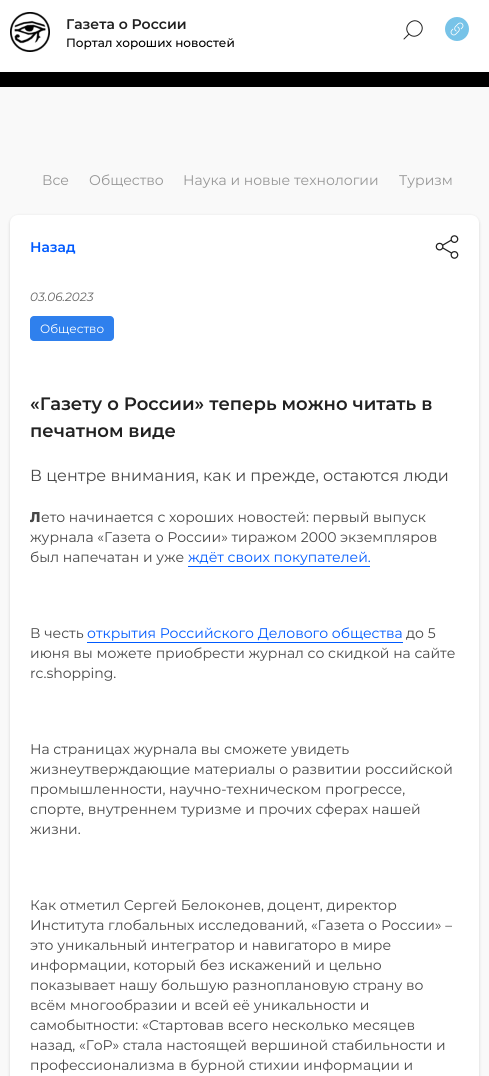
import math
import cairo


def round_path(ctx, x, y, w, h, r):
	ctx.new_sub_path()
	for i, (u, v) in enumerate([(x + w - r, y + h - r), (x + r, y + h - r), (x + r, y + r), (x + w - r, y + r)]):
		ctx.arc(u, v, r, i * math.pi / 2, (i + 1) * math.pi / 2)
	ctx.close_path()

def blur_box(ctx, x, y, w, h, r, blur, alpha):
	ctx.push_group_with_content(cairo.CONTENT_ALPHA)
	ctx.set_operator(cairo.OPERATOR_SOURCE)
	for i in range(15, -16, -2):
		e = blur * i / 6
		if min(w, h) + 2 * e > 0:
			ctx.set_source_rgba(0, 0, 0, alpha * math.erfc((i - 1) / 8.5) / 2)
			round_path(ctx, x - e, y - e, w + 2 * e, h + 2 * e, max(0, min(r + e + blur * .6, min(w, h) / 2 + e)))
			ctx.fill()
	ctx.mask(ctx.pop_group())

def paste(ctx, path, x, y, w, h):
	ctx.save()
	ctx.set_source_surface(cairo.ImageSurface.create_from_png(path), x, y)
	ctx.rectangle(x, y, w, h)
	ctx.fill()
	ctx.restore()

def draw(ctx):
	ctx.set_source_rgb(0.973, 0.973, 0.973)
	ctx.paint()
	ctx.set_source_rgb(1, 1, 1)
	ctx.rectangle(0, 0, 489, 72)
	ctx.fill()
	ctx.set_source_rgb(0, 0, 0)
	ctx.rectangle(0, 72, 489, 15)
	ctx.fill()
	paste(ctx, 'media/1.png', 10, 12, 40, 40)
	ctx.select_font_face('Montserrat SemiBold')
	ctx.set_font_size(14)
	ctx.set_source_rgb(0.129, 0.129, 0.129)
	ctx.move_to(66, 29)
	ctx.show_text('Газета о России')
	ctx.select_font_face('Montserrat Medium')
	ctx.set_font_size(12)
	ctx.set_source_rgb(0, 0, 0)
	ctx.move_to(66, 47)
	ctx.show_text('Портал хороших новостей')
	ctx.new_path()
	ctx.move_to(404, 39)
	ctx.line_to(409, 34)
	ctx.move_to(409, 34)
	ctx.curve_to(402, 27, 413, 16, 420, 23)
	ctx.curve_to(427, 30, 416, 41, 409, 34)
	ctx.close_path()
	ctx.set_source_rgb(0.129, 0.129, 0.129)
	ctx.set_line_width(1)
	ctx.set_line_cap(cairo.LINE_CAP_ROUND)
	ctx.set_line_join(cairo.LINE_JOIN_ROUND)
	ctx.stroke()
	paste(ctx, 'media/2.png', 445, 17, 24, 24)
	ctx.select_font_face('Montserrat')
	ctx.set_font_size(14)
	ctx.set_source_rgb(0.588, 0.588, 0.588)
	for x, y, s in [
		(42, 185, 'Все'),
		(89, 185, 'Общество'),
		(183, 185, 'Наука и новые технологии'),
		(399, 185, 'Туризм'),
	]:
		ctx.move_to(x, y)
		ctx.show_text(s)
	ctx.set_source_rgb(0, 0, 0)
	blur_box(ctx, 10, 216, 469, 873, 8, 1.5, 0.15)
	ctx.set_source_rgb(1, 1, 1)
	round_path(ctx, 10, 215, 469, 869, 8)
	ctx.fill()
	ctx.select_font_face('Montserrat SemiBold')
	ctx.set_source_rgb(0, 0.353, 1)
	ctx.move_to(30, 252)
	ctx.show_text('Назад')
	paste(ctx, 'media/3.png', 435, 235, 24, 24)
	ctx.select_font_face('Montserrat', cairo.FONT_SLANT_ITALIC)
	ctx.set_font_size(12)
	ctx.set_source_rgb(0.4, 0.4, 0.4)
	ctx.move_to(30, 301)
	ctx.show_text('03.06.2023')
	ctx.set_source_rgb(0.184, 0.502, 0.929)
	round_path(ctx, 30, 316, 84, 25, 4)
	ctx.fill()
	ctx.select_font_face('Montserrat')
	ctx.set_source_rgb(1, 1, 1)
	ctx.move_to(40, 333)
	ctx.show_text('Общество')
	ctx.select_font_face('Montserrat SemiBold')
	ctx.set_font_size(18)
	ctx.set_source_rgb(0.129, 0.129, 0.129)
	ctx.move_to(30, 410)
	ctx.show_text('«Газету о России» теперь можно читать в')
	ctx.move_to(30, 437)
	ctx.show_text('печатном виде')
	ctx.select_font_face('Montserrat')
	ctx.set_font_size(16)
	ctx.set_source_rgb(0.278, 0.278, 0.278)
	ctx.move_to(30, 481)
	ctx.show_text('В центре внимания, как и прежде, остаются люди')
	ctx.select_font_face('Noto Sans Black')
	ctx.set_font_size(14)
	ctx.move_to(30, 522)
	ctx.show_text('Л')
	ctx.select_font_face('Montserrat')
	for x, y, s in [
		(41, 522, 'ето начинается с хороших новостей: первый выпуск'),
		(30, 542, 'журнала «Газета о России» тиражом 2000 экземпляров'),
		(30, 562, 'был напечатан и уже'),
	]:
		ctx.move_to(x, y)
		ctx.show_text(s)
	ctx.set_source_rgb(0, 0.353, 1)
	ctx.move_to(188, 562)
	ctx.show_text('ждёт своих покупателей.')
	ctx.rectangle(188, 566, 182, 1)
	ctx.fill()
	ctx.set_source_rgb(0.278, 0.278, 0.278)
	ctx.move_to(30, 638)
	ctx.show_text('В честь')
	ctx.set_source_rgb(0, 0.353, 1)
	ctx.move_to(87, 638)
	ctx.show_text('открытия Российского Делового общества')
	ctx.rectangle(87, 642, 316, 1)
	ctx.fill()
	ctx.set_source_rgb(0.278, 0.278, 0.278)
	for x, y, s in [
		(406, 638, 'до 5'),
		(30, 658, 'июня вы можете приобрести журнал со скидкой на сайте'),
		(30, 678, 'rc.shopping.'),
		(30, 754, 'На страницах журнала вы сможете увидеть'),
		(30, 774, 'жизнеутверждающие материалы о развитии российской'),
		(30, 794, 'промышленности, научно-техническом прогрессе,'),
		(30, 814, 'спорте, внутреннем туризме и прочих сферах нашей'),
		(30, 834, 'жизни.'),
		(30, 910, 'Как отметил Сергей Белоконев, доцент, директор'),
		(30, 930, 'Института глобальных исследований, «Газета о России» –'),
		(30, 950, 'это уникальный интегратор и навигаторо в мире'),
		(30, 970, 'информации, который без искажений и цельно'),
		(30, 990, 'показывает нашу большую разноплановую страну во'),
		(30, 1010, 'всём многообразии и всей её уникальности и'),
		(30, 1030, 'самобытности: «Стартовав всего несколько месяцев'),
		(30, 1050, 'назад, «ГоР» стала настоящей вершиной стабильности и'),
		(30, 1070, 'профессионализма в бурной стихии информации и'),
	]:
		ctx.move_to(x, y)
		ctx.show_text(s)


surface = cairo.ImageSurface(cairo.FORMAT_RGB24, 489, 1076)
ctx = cairo.Context(surface)
options = cairo.FontOptions()
options.set_hint_metrics(cairo.HINT_METRICS_OFF)
options.set_hint_style(cairo.HINT_STYLE_NONE)
ctx.set_font_options(options)
ctx.set_miter_limit(4)
draw(ctx)
surface.write_to_png('image.png')
